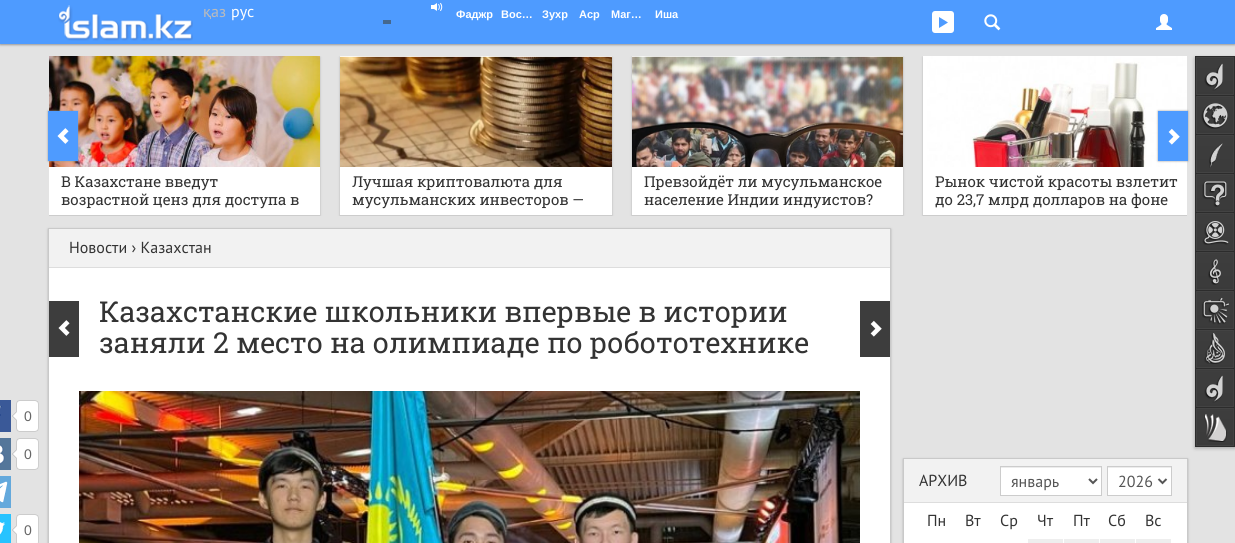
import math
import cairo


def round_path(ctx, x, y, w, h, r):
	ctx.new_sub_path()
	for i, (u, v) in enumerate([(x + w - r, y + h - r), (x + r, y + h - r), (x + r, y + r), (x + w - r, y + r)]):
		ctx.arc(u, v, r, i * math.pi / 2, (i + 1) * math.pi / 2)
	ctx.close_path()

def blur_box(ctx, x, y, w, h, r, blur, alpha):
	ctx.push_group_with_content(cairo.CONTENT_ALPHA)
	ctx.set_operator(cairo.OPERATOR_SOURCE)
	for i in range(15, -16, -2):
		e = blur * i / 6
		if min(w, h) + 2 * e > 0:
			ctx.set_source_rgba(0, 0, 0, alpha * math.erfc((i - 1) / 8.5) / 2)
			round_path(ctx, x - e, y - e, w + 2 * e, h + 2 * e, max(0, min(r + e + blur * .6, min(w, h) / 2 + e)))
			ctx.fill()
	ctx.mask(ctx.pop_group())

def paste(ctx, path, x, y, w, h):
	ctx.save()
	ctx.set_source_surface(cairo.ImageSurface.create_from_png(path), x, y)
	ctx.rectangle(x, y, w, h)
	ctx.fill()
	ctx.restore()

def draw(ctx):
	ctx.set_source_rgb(0.89, 0.89, 0.89)
	ctx.paint()
	ctx.set_source_rgb(0.6, 0.6, 0.6)
	blur_box(ctx, 0, 1, 1235, 44, 0, 1, 1)
	ctx.set_source_rgb(0.306, 0.608, 1)
	ctx.rectangle(0, 0, 1235, 44)
	ctx.fill()
	paste(ctx, 'media/1.png', 58, 5, 135, 36)
	ctx.select_font_face('PT Sans')
	ctx.set_font_size(16)
	ctx.set_source_rgb(0.733, 0.733, 0.733)
	ctx.move_to(203, 17)
	ctx.show_text('қаз')
	ctx.set_source_rgb(1, 1, 1)
	ctx.move_to(231, 17)
	ctx.show_text('рус')
	paste(ctx, 'media/2.png', 431, 2, 12, 9)
	ctx.select_font_face('Liberation Sans', cairo.FONT_SLANT_NORMAL, cairo.FONT_WEIGHT_BOLD)
	ctx.set_font_size(11)
	for x, y, s in [
		(456, 18, 'Фаджр'),
		(501, 18, 'Вос…'),
		(542, 18, 'Зухр'),
		(579, 18, 'Аср'),
		(611, 18, 'Маг…'),
		(655, 18, 'Иша'),
	]:
		ctx.move_to(x, y)
		ctx.show_text(s)
	ctx.set_source_rgb(0.271, 0.408, 0.557)
	ctx.rectangle(383, 20, 8, 4)
	ctx.fill()
	ctx.set_source_rgb(1, 1, 1)
	round_path(ctx, 932, 11, 22, 22, 3)
	ctx.fill()
	ctx.set_source_rgb(0.306, 0.608, 1)
	ctx.new_path()
	ctx.move_to(939, 28)
	ctx.line_to(948, 22.5)
	ctx.line_to(939, 17)
	ctx.close_path()
	ctx.fill()
	paste(ctx, 'media/3.png', 984, 14, 17, 17)
	paste(ctx, 'media/4.png', 1156, 14, 16, 16)
	ctx.save()
	ctx.rectangle(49, 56, 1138, 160)
	ctx.clip()
	ctx.set_source_rgb(0.702, 0.702, 0.702)
	blur_box(ctx, 49, 57, 271, 160, 0, 1, 1)
	ctx.restore()
	paste(ctx, 'media/7.png', 49, 56, 271, 111)
	ctx.set_source_rgb(0.6, 0.6, 0.6)
	blur_box(ctx, 48, 111, 30, 50, 0, 1, 1)
	ctx.set_source_rgb(0.306, 0.608, 1)
	ctx.rectangle(48, 111, 30, 50)
	ctx.fill()
	paste(ctx, 'media/5.png', 57, 128, 12, 16)
	ctx.save()
	ctx.rectangle(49, 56, 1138, 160)
	ctx.clip()
	ctx.set_source_rgb(0.702, 0.702, 0.702)
	blur_box(ctx, 923, 57, 272, 160, 0, 1, 1)
	ctx.restore()
	paste(ctx, 'media/10.png', 923, 56, 264, 111)
	ctx.set_source_rgb(0.6, 0.6, 0.6)
	blur_box(ctx, 1158, 111, 30, 50, 0, 1, 1)
	ctx.set_source_rgb(0.306, 0.608, 1)
	ctx.rectangle(1158, 111, 30, 50)
	ctx.fill()
	paste(ctx, 'media/6.png', 1168, 128, 12, 17)
	ctx.set_source_rgb(1, 1, 1)
	ctx.rectangle(49, 167, 271, 48)
	ctx.fill()
	ctx.select_font_face('Roboto Slab')
	ctx.set_font_size(15)
	ctx.set_source_rgb(0.2, 0.2, 0.2)
	ctx.move_to(61, 187)
	ctx.show_text('В Казахстане введут')
	ctx.move_to(61, 205)
	ctx.show_text('возрастной ценз для доступа в')
	ctx.set_source_rgb(0.8, 0.8, 0.8)
	ctx.rectangle(49, 215, 271, 1)
	ctx.fill()
	ctx.save()
	ctx.rectangle(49, 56, 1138, 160)
	ctx.clip()
	ctx.set_source_rgb(0.702, 0.702, 0.702)
	blur_box(ctx, 340, 57, 272, 160, 0, 1, 1)
	ctx.restore()
	paste(ctx, 'media/8.png', 340, 56, 272, 111)
	ctx.set_source_rgb(1, 1, 1)
	ctx.rectangle(340, 167, 272, 48)
	ctx.fill()
	ctx.set_source_rgb(0.2, 0.2, 0.2)
	ctx.move_to(352, 187)
	ctx.show_text('Лучшая криптовалюта для')
	ctx.move_to(352, 205)
	ctx.show_text('мусульманских инвесторов —')
	ctx.set_source_rgb(0.8, 0.8, 0.8)
	ctx.rectangle(340, 215, 272, 1)
	ctx.fill()
	ctx.save()
	ctx.rectangle(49, 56, 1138, 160)
	ctx.clip()
	ctx.set_source_rgb(0.702, 0.702, 0.702)
	blur_box(ctx, 632, 57, 271, 160, 0, 1, 1)
	ctx.restore()
	paste(ctx, 'media/9.png', 632, 56, 271, 111)
	ctx.set_source_rgb(1, 1, 1)
	ctx.rectangle(632, 167, 271, 48)
	ctx.fill()
	ctx.set_source_rgb(0.2, 0.2, 0.2)
	ctx.move_to(644, 187)
	ctx.show_text('Превзойдёт ли мусульманское')
	ctx.move_to(644, 205)
	ctx.show_text('население Индии индуистов?')
	ctx.set_source_rgb(0.8, 0.8, 0.8)
	ctx.rectangle(632, 215, 271, 1)
	ctx.fill()
	ctx.set_source_rgb(1, 1, 1)
	ctx.rectangle(923, 167, 264, 48)
	ctx.fill()
	ctx.set_source_rgb(0.2, 0.2, 0.2)
	ctx.move_to(935, 187)
	ctx.show_text('Рынок чистой красоты взлетит')
	ctx.move_to(935, 205)
	ctx.show_text('до 23,7 млрд долларов на фоне')
	ctx.set_source_rgb(0.8, 0.8, 0.8)
	ctx.rectangle(923, 215, 264, 1)
	ctx.fill()
	ctx.set_source_rgb(0, 0, 0)
	blur_box(ctx, 1195, 58, 40, 390, 0, 2, 0.3)
	ctx.rectangle(1195.5, 56.5, 39, 39)
	ctx.set_source_rgb(0.173, 0.173, 0.173)
	ctx.set_line_width(1)
	ctx.stroke()
	paste(ctx, 'media/11.png', 1197, 58, 36, 36)
	ctx.rectangle(1196.5, 57.5, 37, 37)
	ctx.set_source_rgb(0.263, 0.263, 0.263)
	ctx.stroke()
	paste(ctx, 'media/12.png', 1204, 63, 19, 28)
	ctx.rectangle(1195.5, 95.5, 39, 39)
	ctx.set_source_rgb(0.173, 0.173, 0.173)
	ctx.stroke()
	paste(ctx, 'media/11.png', 1197, 97, 36, 36)
	ctx.rectangle(1196.5, 96.5, 37, 37)
	ctx.set_source_rgb(0.263, 0.263, 0.263)
	ctx.stroke()
	paste(ctx, 'media/13.png', 1201, 103, 27, 26)
	ctx.rectangle(1195.5, 134.5, 39, 39)
	ctx.set_source_rgb(0.173, 0.173, 0.173)
	ctx.stroke()
	paste(ctx, 'media/11.png', 1197, 136, 36, 36)
	ctx.rectangle(1196.5, 135.5, 37, 37)
	ctx.set_source_rgb(0.263, 0.263, 0.263)
	ctx.stroke()
	paste(ctx, 'media/14.png', 1209, 143, 14, 25)
	ctx.rectangle(1195.5, 173.5, 39, 39)
	ctx.set_source_rgb(0.173, 0.173, 0.173)
	ctx.stroke()
	paste(ctx, 'media/11.png', 1197, 175, 36, 36)
	ctx.rectangle(1196.5, 174.5, 37, 37)
	ctx.set_source_rgb(0.263, 0.263, 0.263)
	ctx.stroke()
	paste(ctx, 'media/15.png', 1202, 181, 25, 26)
	ctx.rectangle(1195.5, 212.5, 39, 39)
	ctx.set_source_rgb(0.173, 0.173, 0.173)
	ctx.stroke()
	paste(ctx, 'media/11.png', 1197, 214, 36, 36)
	ctx.rectangle(1196.5, 213.5, 37, 37)
	ctx.set_source_rgb(0.263, 0.263, 0.263)
	ctx.stroke()
	paste(ctx, 'media/16.png', 1202, 221, 27, 24)
	ctx.rectangle(1195.5, 251.5, 39, 39)
	ctx.set_source_rgb(0.173, 0.173, 0.173)
	ctx.stroke()
	paste(ctx, 'media/11.png', 1197, 253, 36, 36)
	ctx.rectangle(1196.5, 252.5, 37, 37)
	ctx.set_source_rgb(0.263, 0.263, 0.263)
	ctx.stroke()
	paste(ctx, 'media/17.png', 1208, 259, 13, 26)
	ctx.rectangle(1195.5, 290.5, 39, 39)
	ctx.set_source_rgb(0.173, 0.173, 0.173)
	ctx.stroke()
	paste(ctx, 'media/11.png', 1197, 292, 36, 36)
	ctx.rectangle(1196.5, 291.5, 37, 37)
	ctx.set_source_rgb(0.263, 0.263, 0.263)
	ctx.stroke()
	paste(ctx, 'media/18.png', 1202, 297, 27, 28)
	ctx.rectangle(1195.5, 329.5, 39, 39)
	ctx.set_source_rgb(0.173, 0.173, 0.173)
	ctx.stroke()
	paste(ctx, 'media/11.png', 1197, 331, 36, 36)
	ctx.rectangle(1196.5, 330.5, 37, 37)
	ctx.set_source_rgb(0.263, 0.263, 0.263)
	ctx.stroke()
	paste(ctx, 'media/19.png', 1204, 333, 21, 31)
	ctx.rectangle(1195.5, 368.5, 39, 39)
	ctx.set_source_rgb(0.173, 0.173, 0.173)
	ctx.stroke()
	paste(ctx, 'media/11.png', 1197, 370, 36, 36)
	ctx.rectangle(1196.5, 369.5, 37, 37)
	ctx.set_source_rgb(0.263, 0.263, 0.263)
	ctx.stroke()
	paste(ctx, 'media/12.png', 1204, 375, 19, 28)
	ctx.rectangle(1195.5, 407.5, 39, 39)
	ctx.set_source_rgb(0.173, 0.173, 0.173)
	ctx.stroke()
	paste(ctx, 'media/11.png', 1197, 409, 36, 36)
	ctx.rectangle(1196.5, 408.5, 37, 37)
	ctx.set_source_rgb(0.263, 0.263, 0.263)
	ctx.stroke()
	paste(ctx, 'media/20.png', 1204, 414, 23, 28)
	ctx.set_source_rgb(0.702, 0.702, 0.702)
	blur_box(ctx, 48, 229, 843, 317, 0, 1, 1)
	ctx.set_source_rgb(1, 1, 1)
	ctx.rectangle(49, 268, 841, 275)
	ctx.fill()
	ctx.rectangle(48.5, 228.5, 842, 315)
	ctx.set_source_rgb(0.788, 0.788, 0.788)
	ctx.stroke()
	ctx.set_source_rgb(0.949, 0.949, 0.949)
	ctx.rectangle(49, 229, 841, 38)
	ctx.fill()
	ctx.set_source_rgb(0.867, 0.867, 0.867)
	ctx.rectangle(49, 267, 841, 1)
	ctx.fill()
	ctx.select_font_face('PT Sans')
	ctx.set_font_size(16)
	ctx.set_source_rgb(0.2, 0.2, 0.2)
	ctx.move_to(69, 253)
	ctx.show_text('Новости › Казахстан')
	ctx.set_source_rgb(0.239, 0.239, 0.239)
	ctx.rectangle(49, 301, 30, 56)
	ctx.fill()
	paste(ctx, 'media/21.png', 58, 320, 12, 16)
	ctx.select_font_face('Roboto Slab')
	ctx.set_font_size(28.8)
	ctx.set_source_rgb(0.2, 0.2, 0.2)
	ctx.move_to(99, 322)
	ctx.show_text('Казахстанские школьники впервые в истории')
	ctx.move_to(99, 353)
	ctx.show_text('заняли 2 место на олимпиаде по робототехнике')
	ctx.set_source_rgb(0.239, 0.239, 0.239)
	ctx.rectangle(860, 301, 30, 56)
	ctx.fill()
	paste(ctx, 'media/22.png', 870, 320, 12, 17)
	paste(ctx, 'media/23.png', 0, 400, 11, 32)
	paste(ctx, 'media/24.png', 20, 400, 19, 32)
	paste(ctx, 'media/25.png', 12, 400, 8, 32)
	ctx.select_font_face('Liberation Sans')
	ctx.set_font_size(14)
	ctx.set_source_rgb(0.4, 0.4, 0.4)
	ctx.move_to(24, 421)
	ctx.show_text('0')
	paste(ctx, 'media/26.png', 0, 438, 11, 32)
	paste(ctx, 'media/24.png', 20, 438, 19, 32)
	paste(ctx, 'media/25.png', 12, 438, 8, 32)
	ctx.move_to(24, 459)
	ctx.show_text('0')
	paste(ctx, 'media/27.png', 0, 476, 11, 32)
	paste(ctx, 'media/28.png', 0, 514, 11, 29)
	paste(ctx, 'media/29.png', 20, 514, 19, 29)
	paste(ctx, 'media/30.png', 12, 514, 8, 29)
	ctx.move_to(24, 535)
	ctx.show_text('0')
	paste(ctx, 'media/31.png', 79, 391, 781, 152)
	ctx.set_source_rgb(0.702, 0.702, 0.702)
	blur_box(ctx, 903, 459, 285, 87, 0, 1, 1)
	ctx.set_source_rgb(1, 1, 1)
	ctx.rectangle(904, 503, 283, 40)
	ctx.fill()
	ctx.rectangle(903.5, 458.5, 284, 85)
	ctx.set_source_rgb(0.788, 0.788, 0.788)
	ctx.stroke()
	ctx.set_source_rgb(0.949, 0.949, 0.949)
	ctx.rectangle(904, 459, 283, 43)
	ctx.fill()
	ctx.set_source_rgb(0.867, 0.867, 0.867)
	ctx.rectangle(904, 502, 283, 1)
	ctx.fill()
	ctx.select_font_face('PT Sans')
	ctx.set_font_size(16)
	ctx.set_source_rgb(0.2, 0.2, 0.2)
	ctx.move_to(919, 486)
	ctx.show_text('АРХИВ')
	ctx.set_source_rgb(1, 1, 1)
	ctx.rectangle(1001, 468, 100, 27)
	ctx.fill()
	ctx.set_source_rgb(0.925, 0.925, 0.925)
	ctx.rectangle(1001, 467, 100, 1)
	ctx.fill()
	ctx.rectangle(1000.5, 466.5, 101, 29)
	ctx.set_source_rgb(0.8, 0.8, 0.8)
	ctx.stroke()
	ctx.new_path()
	ctx.move_to(1089, 479)
	ctx.line_to(1093, 483)
	ctx.line_to(1097, 479)
	ctx.set_source_rgb(0.333, 0.333, 0.333)
	ctx.set_line_width(2)
	ctx.stroke()
	ctx.move_to(1011, 487)
	ctx.show_text('январь')
	ctx.set_source_rgb(1, 1, 1)
	ctx.rectangle(1108, 468, 63, 27)
	ctx.fill()
	ctx.set_source_rgb(0.925, 0.925, 0.925)
	ctx.rectangle(1108, 467, 63, 1)
	ctx.fill()
	ctx.rectangle(1107.5, 466.5, 64, 29)
	ctx.set_source_rgb(0.8, 0.8, 0.8)
	ctx.set_line_width(1)
	ctx.stroke()
	ctx.new_path()
	ctx.move_to(1158.5, 479)
	ctx.line_to(1162.5, 483)
	ctx.line_to(1166.5, 479)
	ctx.set_source_rgb(0.333, 0.333, 0.333)
	ctx.set_line_width(2)
	ctx.stroke()
	ctx.move_to(1118, 487)
	ctx.show_text('2026')
	ctx.set_source_rgb(0.2, 0.2, 0.2)
	for x, y, s in [
		(927, 526, 'Пн'),
		(965, 526, 'Вт'),
		(1000, 526, 'Ср'),
		(1037, 526, 'Чт'),
		(1073, 526, 'Пт'),
		(1108, 526, 'Сб'),
		(1145, 526, 'Вс'),
	]:
		ctx.move_to(x, y)
		ctx.show_text(s)
	ctx.set_source_rgb(0.933, 0.933, 0.933)
	ctx.rectangle(1028, 539, 35, 4)
	ctx.rectangle(1064, 539, 35, 4)
	ctx.rectangle(1100, 539, 35, 4)
	ctx.rectangle(1136, 539, 35, 4)
	ctx.fill()


surface = cairo.ImageSurface(cairo.FORMAT_RGB24, 1235, 543)
ctx = cairo.Context(surface)
options = cairo.FontOptions()
options.set_hint_metrics(cairo.HINT_METRICS_OFF)
options.set_hint_style(cairo.HINT_STYLE_NONE)
ctx.set_font_options(options)
ctx.set_miter_limit(4)
draw(ctx)
surface.write_to_png('image.png')
